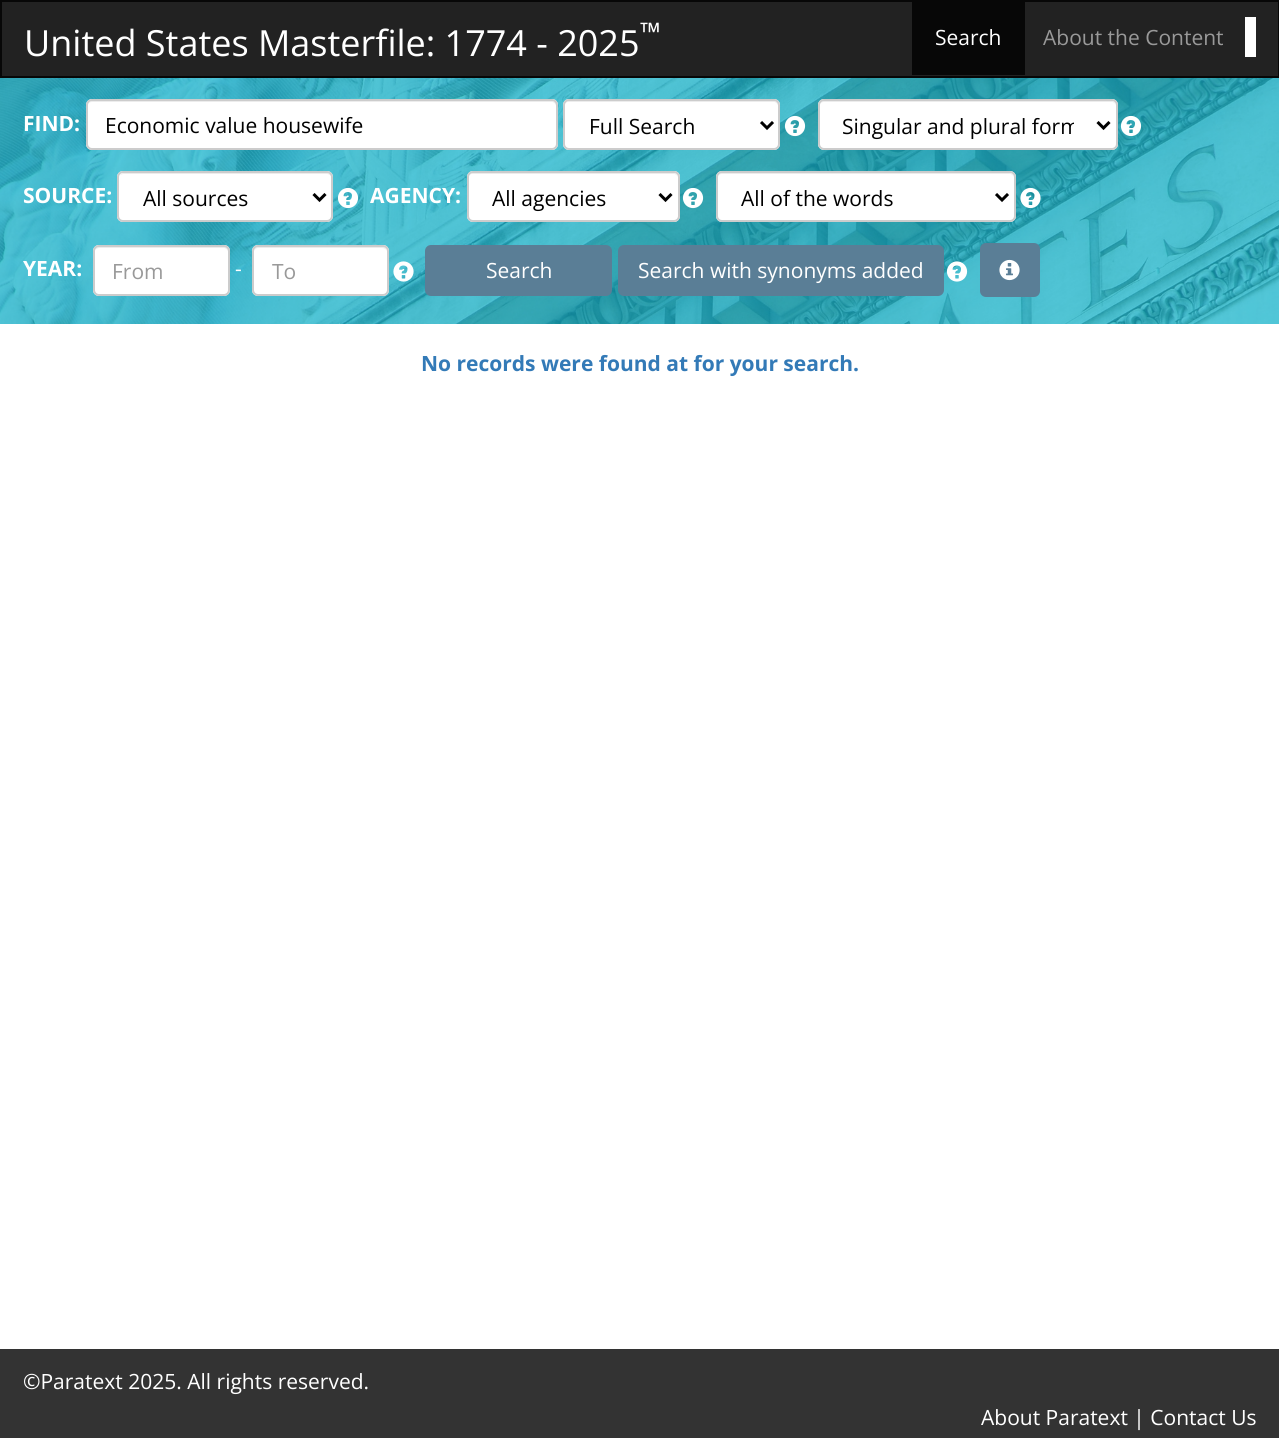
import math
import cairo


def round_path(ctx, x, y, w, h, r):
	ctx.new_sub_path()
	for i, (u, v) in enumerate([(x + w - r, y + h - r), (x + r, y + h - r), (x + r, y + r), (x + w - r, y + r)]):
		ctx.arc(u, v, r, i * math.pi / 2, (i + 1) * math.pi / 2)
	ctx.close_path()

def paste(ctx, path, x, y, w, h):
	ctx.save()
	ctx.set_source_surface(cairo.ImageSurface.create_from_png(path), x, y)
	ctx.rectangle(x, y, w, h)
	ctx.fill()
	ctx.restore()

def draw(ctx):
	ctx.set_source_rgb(1, 1, 1)
	ctx.paint()
	ctx.set_source_rgb(0.133, 0.133, 0.133)
	ctx.rectangle(1, 1, 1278, 76)
	ctx.fill_preserve()
	ctx.set_source_rgb(0.031, 0.031, 0.031)
	ctx.stroke()
	ctx.select_font_face('Open Sans')
	ctx.set_font_size(36)
	ctx.set_source_rgb(1, 1, 1)
	ctx.move_to(24, 56)
	ctx.show_text('United States Masterfile: 1774 - 2025')
	ctx.select_font_face('Open Sans Medium')
	ctx.set_font_size(27)
	ctx.move_to(640, 42)
	ctx.show_text('™')
	ctx.set_source_rgb(0.031, 0.031, 0.031)
	ctx.rectangle(912, 2, 113, 73)
	ctx.fill()
	ctx.select_font_face('Open Sans')
	ctx.set_font_size(21)
	ctx.set_source_rgb(1, 1, 1)
	ctx.move_to(935, 45)
	ctx.show_text('Search')
	ctx.set_source_rgb(0.6, 0.6, 0.6)
	ctx.move_to(1043, 45)
	ctx.show_text('About the Content')
	ctx.set_source_rgb(1, 1, 1)
	ctx.rectangle(1245, 17, 11, 40)
	ctx.fill()
	ctx.set_source_rgb(0, 0.757, 0.871)
	ctx.rectangle(0, 78, 1279, 246)
	ctx.fill()
	paste(ctx, 'media/1.png', 0, 78, 1279, 246)
	ctx.select_font_face('Open Sans', cairo.FONT_SLANT_NORMAL, cairo.FONT_WEIGHT_BOLD)
	ctx.set_source_rgb(1, 1, 1)
	ctx.move_to(23, 131)
	ctx.show_text('FIND:')
	round_path(ctx, 86, 99, 472, 51, 6)
	ctx.fill()
	ctx.set_source_rgb(0.925, 0.925, 0.925)
	ctx.new_path()
	ctx.move_to(92, 102)
	ctx.line_to(552, 102)
	ctx.curve_to(554, 102, 556, 104, 556, 106)
	ctx.line_to(556, 147)
	ctx.curve_to(557, 146, 557, 145, 557, 144)
	ctx.line_to(557, 106)
	ctx.curve_to(557, 103, 555, 101, 552, 101)
	ctx.line_to(92, 101)
	ctx.curve_to(89, 101, 87, 103, 87, 106)
	ctx.curve_to(87, 104, 89, 102, 92, 102)
	ctx.close_path()
	ctx.fill()
	round_path(ctx, 87, 100, 470, 49, 5)
	ctx.set_source_rgb(0.8, 0.8, 0.8)
	ctx.stroke()
	ctx.select_font_face('Open Sans')
	ctx.set_source_rgb(0, 0, 0)
	ctx.move_to(105, 133)
	ctx.show_text('Economic value housewife')
	ctx.set_source_rgb(1, 1, 1)
	round_path(ctx, 563, 99, 217, 51, 6)
	ctx.fill()
	ctx.set_source_rgb(0.925, 0.925, 0.925)
	ctx.new_path()
	ctx.move_to(568, 102)
	ctx.line_to(774, 102)
	ctx.curve_to(776, 102, 778, 104, 778, 106)
	ctx.line_to(778, 147)
	ctx.curve_to(779, 146, 779, 145, 779, 144)
	ctx.line_to(779, 106)
	ctx.curve_to(779, 103, 777, 101, 774, 101)
	ctx.line_to(569, 101)
	ctx.curve_to(566, 101, 564, 103, 564, 106)
	ctx.curve_to(564, 104, 566, 102, 568, 102)
	ctx.close_path()
	ctx.fill()
	round_path(ctx, 564, 100, 215, 49, 5)
	ctx.set_source_rgb(0.8, 0.8, 0.8)
	ctx.stroke()
	ctx.new_path()
	ctx.move_to(761, 122)
	ctx.line_to(767, 128)
	ctx.line_to(773, 122)
	ctx.set_source_rgb(0, 0, 0)
	ctx.set_line_width(3)
	ctx.stroke()
	ctx.move_to(589, 134)
	ctx.show_text('Full Search')
	paste(ctx, 'media/2.png', 784, 115, 22, 22)
	ctx.set_source_rgb(1, 1, 1)
	round_path(ctx, 818, 99, 300, 51, 6)
	ctx.fill()
	ctx.set_source_rgb(0.925, 0.925, 0.925)
	ctx.new_path()
	ctx.move_to(824, 102)
	ctx.line_to(1112, 102)
	ctx.curve_to(1114, 102, 1116, 104, 1116, 106)
	ctx.curve_to(1116, 103, 1114, 101, 1111, 101)
	ctx.line_to(824, 101)
	ctx.curve_to(821, 101, 819, 103, 819, 106)
	ctx.curve_to(819, 104, 821, 102, 824, 102)
	ctx.close_path()
	ctx.fill()
	round_path(ctx, 819, 100, 298, 49, 5)
	ctx.set_source_rgb(0.8, 0.8, 0.8)
	ctx.set_line_width(2)
	ctx.stroke()
	ctx.new_path()
	ctx.move_to(1097.5, 122)
	ctx.line_to(1103.5, 128)
	ctx.line_to(1109.5, 122)
	ctx.set_source_rgb(0, 0, 0)
	ctx.set_line_width(3)
	ctx.stroke()
	ctx.save()
	ctx.rectangle(843, 110, 231, 31)
	ctx.clip()
	ctx.move_to(842, 134)
	ctx.show_text('Singular and plural form')
	ctx.restore()
	paste(ctx, 'media/3.png', 1120, 115, 22, 22)
	ctx.select_font_face('Open Sans', cairo.FONT_SLANT_NORMAL, cairo.FONT_WEIGHT_BOLD)
	ctx.set_source_rgb(1, 1, 1)
	ctx.move_to(23, 203)
	ctx.show_text('SOURCE:')
	round_path(ctx, 117, 171, 216, 51, 6)
	ctx.fill()
	ctx.set_source_rgb(0.925, 0.925, 0.925)
	ctx.new_path()
	ctx.move_to(123, 174)
	ctx.line_to(327, 174)
	ctx.curve_to(329, 174, 332, 176, 332, 178)
	ctx.curve_to(332, 175, 330, 173, 327, 173)
	ctx.line_to(124, 173)
	ctx.curve_to(122, 173, 121, 174, 120, 175)
	ctx.close_path()
	ctx.fill()
	round_path(ctx, 118, 172, 214, 49, 5)
	ctx.set_source_rgb(0.8, 0.8, 0.8)
	ctx.set_line_width(2)
	ctx.stroke()
	ctx.new_path()
	ctx.move_to(313.5, 194)
	ctx.line_to(319.5, 200)
	ctx.line_to(325.5, 194)
	ctx.set_source_rgb(0, 0, 0)
	ctx.set_line_width(3)
	ctx.stroke()
	ctx.select_font_face('Open Sans')
	ctx.move_to(143, 206)
	ctx.show_text('All sources')
	paste(ctx, 'media/4.png', 337, 187, 22, 22)
	ctx.select_font_face('Open Sans', cairo.FONT_SLANT_NORMAL, cairo.FONT_WEIGHT_BOLD)
	ctx.set_source_rgb(1, 1, 1)
	ctx.move_to(370, 203)
	ctx.show_text('AGENCY:')
	round_path(ctx, 467, 171, 213, 51, 6)
	ctx.fill()
	ctx.set_source_rgb(0.925, 0.925, 0.925)
	ctx.new_path()
	ctx.move_to(472, 174)
	ctx.line_to(674, 174)
	ctx.curve_to(676, 174, 678, 176, 678, 178)
	ctx.curve_to(678, 175, 676, 173, 673, 173)
	ctx.line_to(473, 173)
	ctx.curve_to(470, 173, 468, 175, 468, 178)
	ctx.curve_to(468, 176, 470, 174, 472, 174)
	ctx.close_path()
	ctx.fill()
	round_path(ctx, 468, 172, 211, 49, 5)
	ctx.set_source_rgb(0.8, 0.8, 0.8)
	ctx.set_line_width(2)
	ctx.stroke()
	ctx.new_path()
	ctx.move_to(659.5, 194)
	ctx.line_to(665.5, 200)
	ctx.line_to(671.5, 194)
	ctx.set_source_rgb(0, 0, 0)
	ctx.set_line_width(3)
	ctx.stroke()
	ctx.select_font_face('Open Sans')
	ctx.move_to(492, 206)
	ctx.show_text('All agencies')
	paste(ctx, 'media/5.png', 682, 187, 22, 22)
	ctx.set_source_rgb(1, 1, 1)
	round_path(ctx, 716, 171, 300, 51, 6)
	ctx.fill()
	ctx.set_source_rgb(0.925, 0.925, 0.925)
	ctx.new_path()
	ctx.move_to(722, 174)
	ctx.line_to(1010, 174)
	ctx.curve_to(1012, 174, 1014, 176, 1014, 178)
	ctx.curve_to(1014, 175, 1012, 173, 1009, 173)
	ctx.line_to(722, 173)
	ctx.curve_to(719, 173, 717, 175, 717, 178)
	ctx.curve_to(717, 176, 719, 174, 722, 174)
	ctx.close_path()
	ctx.fill()
	round_path(ctx, 717, 172, 298, 49, 5)
	ctx.set_source_rgb(0.8, 0.8, 0.8)
	ctx.set_line_width(2)
	ctx.stroke()
	ctx.new_path()
	ctx.move_to(996, 194)
	ctx.line_to(1002, 200)
	ctx.line_to(1008, 194)
	ctx.set_source_rgb(0, 0, 0)
	ctx.set_line_width(3)
	ctx.stroke()
	ctx.move_to(741, 206)
	ctx.show_text('All of the words')
	paste(ctx, 'media/6.png', 1020, 187, 21, 22)
	ctx.select_font_face('Open Sans', cairo.FONT_SLANT_NORMAL, cairo.FONT_WEIGHT_BOLD)
	ctx.set_source_rgb(1, 1, 1)
	ctx.move_to(23, 276)
	ctx.show_text('YEAR:')
	round_path(ctx, 93, 245, 137, 51, 6)
	ctx.fill()
	ctx.set_source_rgb(0.925, 0.925, 0.925)
	ctx.new_path()
	ctx.move_to(99, 248)
	ctx.line_to(224, 248)
	ctx.curve_to(226, 248, 228, 250, 228, 252)
	ctx.line_to(228, 251)
	ctx.curve_to(228, 248, 226, 246, 223, 246)
	ctx.line_to(100, 246)
	ctx.curve_to(98, 246, 96, 248, 95, 250)
	ctx.curve_to(96, 249, 98, 248, 99, 248)
	ctx.close_path()
	ctx.fill()
	round_path(ctx, 94, 246, 135, 49, 5)
	ctx.set_source_rgb(0.8, 0.8, 0.8)
	ctx.set_line_width(2)
	ctx.stroke()
	ctx.select_font_face('Open Sans')
	ctx.set_source_rgb(0.6, 0.6, 0.6)
	ctx.move_to(112, 279)
	ctx.show_text('From')
	ctx.set_source_rgb(1, 1, 1)
	ctx.move_to(235, 276)
	ctx.show_text('-')
	round_path(ctx, 252, 245, 137, 51, 6)
	ctx.fill()
	ctx.set_source_rgb(0.925, 0.925, 0.925)
	ctx.new_path()
	ctx.move_to(258, 248)
	ctx.line_to(382, 248)
	ctx.curve_to(385, 248, 387, 250, 387, 252)
	ctx.curve_to(387, 241, 365, 246, 362, 246)
	ctx.line_to(280, 246)
	ctx.curve_to(276, 246, 254, 241, 254, 252)
	ctx.curve_to(254, 250, 256, 248, 258, 248)
	ctx.close_path()
	ctx.fill()
	round_path(ctx, 253, 246, 135, 49, 5)
	ctx.set_source_rgb(0.8, 0.8, 0.8)
	ctx.stroke()
	ctx.set_source_rgb(0.6, 0.6, 0.6)
	ctx.move_to(272, 279)
	ctx.show_text('To')
	paste(ctx, 'media/7.png', 393, 261, 21, 21)
	ctx.set_source_rgb(0.353, 0.494, 0.588)
	round_path(ctx, 425, 245, 187, 51, 6)
	ctx.fill()
	ctx.set_source_rgb(1, 1, 1)
	ctx.move_to(486, 278)
	ctx.show_text('Search')
	ctx.set_source_rgb(0.353, 0.494, 0.588)
	round_path(ctx, 618, 245, 326, 51, 6)
	ctx.fill()
	ctx.set_source_rgb(1, 1, 1)
	ctx.move_to(638, 278)
	ctx.show_text('Search with synonyms added')
	paste(ctx, 'media/8.png', 946, 261, 22, 21)
	ctx.set_source_rgb(0.353, 0.494, 0.588)
	round_path(ctx, 981, 244, 58, 52, 5)
	ctx.fill_preserve()
	ctx.stroke()
	paste(ctx, 'media/9.png', 999, 259, 21, 22)
	ctx.select_font_face('Open Sans', cairo.FONT_SLANT_NORMAL, cairo.FONT_WEIGHT_BOLD)
	ctx.set_source_rgb(0.2, 0.478, 0.718)
	ctx.move_to(421, 371)
	ctx.show_text('No records were found at for your search.')
	ctx.set_source_rgb(0.2, 0.2, 0.2)
	ctx.rectangle(0, 1349, 1279, 89)
	ctx.fill()
	ctx.select_font_face('Open Sans')
	ctx.set_source_rgb(1, 1, 1)
	ctx.move_to(23, 1389)
	ctx.show_text('©Paratext 2025. All rights reserved.')
	ctx.move_to(981, 1425)
	ctx.show_text('About Paratext | Contact Us')


surface = cairo.ImageSurface(cairo.FORMAT_RGB24, 1279, 1438)
ctx = cairo.Context(surface)
options = cairo.FontOptions()
options.set_hint_metrics(cairo.HINT_METRICS_OFF)
options.set_hint_style(cairo.HINT_STYLE_NONE)
ctx.set_font_options(options)
ctx.set_miter_limit(4)
draw(ctx)
surface.write_to_png('image.png')
